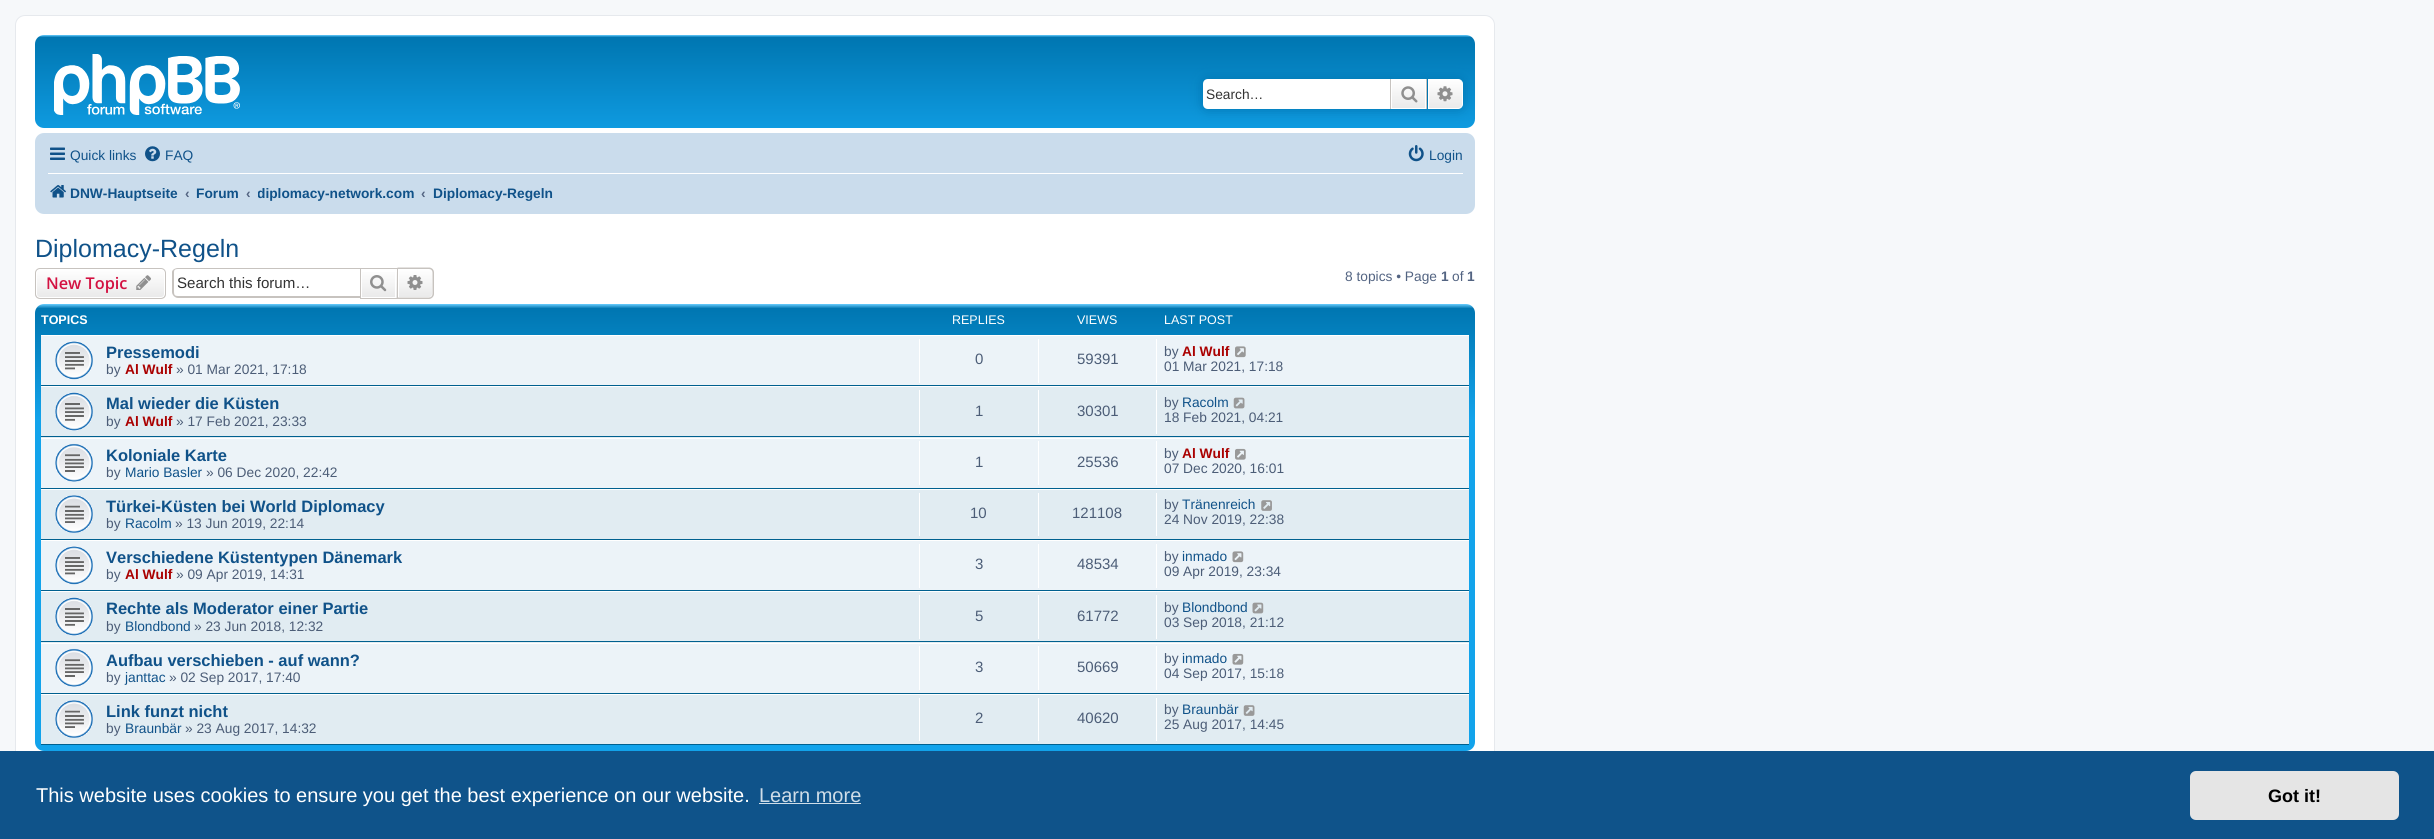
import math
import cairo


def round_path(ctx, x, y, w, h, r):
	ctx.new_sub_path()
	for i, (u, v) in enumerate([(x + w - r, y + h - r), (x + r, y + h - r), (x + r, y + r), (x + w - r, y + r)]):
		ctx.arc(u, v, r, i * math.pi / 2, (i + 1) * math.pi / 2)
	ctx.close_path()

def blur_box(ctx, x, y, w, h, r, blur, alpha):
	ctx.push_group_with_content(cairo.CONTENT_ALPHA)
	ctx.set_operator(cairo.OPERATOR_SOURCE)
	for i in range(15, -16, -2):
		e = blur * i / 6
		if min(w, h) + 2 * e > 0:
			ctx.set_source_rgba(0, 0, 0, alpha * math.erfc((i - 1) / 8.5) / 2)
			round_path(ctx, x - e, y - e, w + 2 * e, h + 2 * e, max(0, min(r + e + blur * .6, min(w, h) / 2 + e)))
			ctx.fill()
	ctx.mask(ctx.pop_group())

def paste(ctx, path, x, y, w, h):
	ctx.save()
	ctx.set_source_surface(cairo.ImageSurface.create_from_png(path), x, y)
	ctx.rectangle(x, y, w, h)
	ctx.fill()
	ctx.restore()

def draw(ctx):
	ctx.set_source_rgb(0.961, 0.969, 0.98)
	ctx.paint()
	ctx.set_source_rgb(1, 1, 1)
	round_path(ctx, 15.5, 15.5, 1479, 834, 9.5)
	ctx.fill_preserve()
	ctx.set_source_rgb(0.902, 0.914, 0.929)
	ctx.set_line_width(1)
	ctx.stroke()
	gradient = cairo.LinearGradient(755, 35, 755, 150)
	gradient.add_color_stop_rgba(0, 0.416, 0.808, 1, 1)
	gradient.add_color_stop_rgba(0.02, 0, 0.463, 0.694, 1)
	gradient.add_color_stop_rgba(1, 0.071, 0.639, 0.922, 1)
	ctx.set_source(gradient)
	round_path(ctx, 35, 35, 1440, 93, 9)
	ctx.fill()
	paste(ctx, 'media/1.png', 54, 54, 186, 61)
	ctx.set_source_rgb(0, 0.459, 0.69)
	blur_box(ctx, 1203, 79, 260, 30, 5, 6, 1)
	ctx.set_source_rgb(1, 1, 1)
	ctx.new_path()
	ctx.move_to(1208, 79)
	ctx.line_to(1390, 79)
	ctx.line_to(1390, 109)
	ctx.line_to(1208, 109)
	ctx.curve_to(1205, 109, 1203, 107, 1203, 104)
	ctx.line_to(1203, 84)
	ctx.curve_to(1203, 81, 1205, 79, 1208, 79)
	ctx.close_path()
	ctx.fill()
	ctx.select_font_face('Liberation Sans')
	ctx.set_font_size(13.75)
	ctx.set_source_rgb(0.2, 0.2, 0.2)
	ctx.move_to(1206, 99)
	ctx.show_text('Search…')
	gradient = cairo.LinearGradient(1409, 79, 1409, 109)
	gradient.add_color_stop_rgba(0, 1, 1, 1, 1)
	gradient.add_color_stop_rgba(1, 0.914, 0.914, 0.914, 1)
	ctx.set_source(gradient)
	ctx.rectangle(1392, 80, 33, 28)
	ctx.fill()
	ctx.rectangle(1391.5, 79.5, 34, 29)
	ctx.set_source_rgb(1, 1, 1)
	ctx.stroke()
	ctx.set_source_rgb(0.78, 0.765, 0.749)
	ctx.rectangle(1426, 79, 1, 30)
	ctx.fill()
	ctx.rectangle(1390, 79, 1, 30)
	ctx.fill()
	paste(ctx, 'media/2.png', 1401, 86, 17, 17)
	gradient = cairo.LinearGradient(1445, 79, 1445, 109)
	gradient.add_color_stop_rgba(0, 1, 1, 1, 1)
	gradient.add_color_stop_rgba(1, 0.914, 0.914, 0.914, 1)
	ctx.set_source(gradient)
	ctx.new_path()
	ctx.move_to(1428.5, 79.5)
	ctx.line_to(1458, 79.5)
	ctx.curve_to(1460.5, 79.5, 1462.5, 81.5, 1462.5, 84)
	ctx.line_to(1462.5, 104)
	ctx.curve_to(1462.5, 106.5, 1460.5, 108.5, 1458, 108.5)
	ctx.line_to(1428.5, 108.5)
	ctx.close_path()
	ctx.fill_preserve()
	ctx.set_source_rgb(1, 1, 1)
	ctx.stroke()
	paste(ctx, 'media/3.png', 1437, 86, 16, 16)
	ctx.set_source_rgb(0.792, 0.863, 0.922)
	round_path(ctx, 35, 133, 1440, 81, 9)
	ctx.fill()
	paste(ctx, 'media/4.png', 50, 147, 15, 13)
	ctx.set_source_rgb(0.063, 0.322, 0.537)
	ctx.move_to(70, 160)
	ctx.show_text('Quick links')
	paste(ctx, 'media/5.png', 145, 146, 15, 16)
	ctx.move_to(165, 160)
	ctx.show_text('FAQ')
	paste(ctx, 'media/6.png', 1408, 145, 16, 17)
	ctx.move_to(1429, 160)
	ctx.show_text('Login')
	ctx.set_source_rgb(1, 1, 1)
	ctx.rectangle(48, 173, 1415, 1)
	ctx.fill()
	paste(ctx, 'media/7.png', 50, 185, 16, 13)
	ctx.select_font_face('Liberation Sans', cairo.FONT_SLANT_NORMAL, cairo.FONT_WEIGHT_BOLD)
	ctx.set_source_rgb(0.063, 0.322, 0.537)
	ctx.move_to(70, 198)
	ctx.show_text('DNW-Hauptseite')
	ctx.set_source_rgb(0.325, 0.392, 0.51)
	ctx.move_to(185, 198)
	ctx.show_text('‹')
	ctx.set_source_rgb(0.063, 0.322, 0.537)
	ctx.move_to(196, 198)
	ctx.show_text('Forum')
	ctx.set_source_rgb(0.325, 0.392, 0.51)
	ctx.move_to(246, 198)
	ctx.show_text('‹')
	ctx.save()
	ctx.rectangle(258, 178, 157, 30)
	ctx.clip()
	ctx.set_source_rgb(0.063, 0.322, 0.537)
	ctx.move_to(257, 198)
	ctx.show_text('diplomacy-network.com')
	ctx.restore()
	ctx.move_to(421, 198)
	ctx.show_text('‹')
	ctx.set_source_rgb(0.063, 0.322, 0.537)
	ctx.move_to(433, 198)
	ctx.show_text('Diplomacy-Regeln')
	ctx.select_font_face('Liberation Sans')
	ctx.set_font_size(25)
	ctx.move_to(35, 257)
	ctx.show_text('Diplomacy-Regeln')
	ctx.save()
	round_path(ctx, 35, 268, 131, 31, 5)
	ctx.clip()
	gradient = cairo.LinearGradient(101, 269, 101, 298)
	gradient.add_color_stop_rgba(0, 1, 1, 1, 1)
	gradient.add_color_stop_rgba(1, 0.914, 0.914, 0.914, 1)
	ctx.set_source(gradient)
	ctx.rectangle(35, 269, 131, 29)
	ctx.fill()
	ctx.restore()
	round_path(ctx, 36.5, 269.5, 128, 28, 3.5)
	ctx.set_source_rgb(1, 1, 1)
	ctx.stroke()
	round_path(ctx, 35.5, 268.5, 130, 30, 4.5)
	ctx.set_source_rgb(0.78, 0.765, 0.749)
	ctx.stroke()
	ctx.select_font_face('Open Sans SemiBold')
	ctx.set_font_size(16.25)
	ctx.set_source_rgb(0.827, 0.067, 0.255)
	ctx.move_to(46, 289)
	ctx.show_text('New Topic')
	paste(ctx, 'media/8.png', 136, 275, 15, 15)
	ctx.set_source_rgb(0.78, 0.765, 0.749)
	ctx.set_fill_rule(cairo.FILL_RULE_EVEN_ODD)
	ctx.new_path()
	ctx.move_to(178, 268)
	ctx.line_to(360, 268)
	ctx.line_to(360, 298)
	ctx.line_to(178, 298)
	ctx.curve_to(175, 298, 172, 295, 172, 292)
	ctx.line_to(172, 272)
	ctx.curve_to(172, 270, 175, 268, 178, 268)
	ctx.close_path()
	ctx.move_to(178, 269)
	ctx.line_to(360, 269)
	ctx.line_to(360, 296)
	ctx.line_to(178, 296)
	ctx.curve_to(175, 296, 174, 295, 174, 292)
	ctx.line_to(174, 272)
	ctx.curve_to(174, 270, 175, 269, 178, 269)
	ctx.close_path()
	ctx.fill()
	ctx.select_font_face('Liberation Sans')
	ctx.set_font_size(15.1)
	ctx.set_source_rgb(0.2, 0.2, 0.2)
	ctx.move_to(177, 288)
	ctx.show_text('Search this forum…')
	gradient = cairo.LinearGradient(379, 269, 379, 298)
	gradient.add_color_stop_rgba(0, 1, 1, 1, 1)
	gradient.add_color_stop_rgba(1, 0.914, 0.914, 0.914, 1)
	ctx.set_source(gradient)
	ctx.rectangle(362, 272, 35, 26)
	ctx.fill()
	ctx.rectangle(361.5, 269.5, 34, 28)
	ctx.set_source_rgb(1, 1, 1)
	ctx.stroke()
	ctx.rectangle(360.5, 268.5, 37, 30)
	ctx.set_source_rgb(0.78, 0.765, 0.749)
	ctx.stroke()
	paste(ctx, 'media/9.png', 370, 275, 17, 17)
	gradient = cairo.LinearGradient(415, 269, 415, 298)
	gradient.add_color_stop_rgba(0, 1, 1, 1, 1)
	gradient.add_color_stop_rgba(1, 0.914, 0.914, 0.914, 1)
	ctx.set_source(gradient)
	ctx.new_path()
	ctx.move_to(398.5, 269.5)
	ctx.line_to(429, 269.5)
	ctx.curve_to(431, 269.5, 432.5, 271, 432.5, 273)
	ctx.line_to(432.5, 294)
	ctx.curve_to(432.5, 296, 431, 297.5, 429, 297.5)
	ctx.line_to(398.5, 297.5)
	ctx.close_path()
	ctx.fill_preserve()
	ctx.set_source_rgb(1, 1, 1)
	ctx.stroke()
	ctx.set_source_rgb(0.78, 0.765, 0.749)
	ctx.new_path()
	ctx.move_to(397.5, 267.5)
	ctx.line_to(429, 267.5)
	ctx.curve_to(431.5, 267.5, 434, 269.5, 434, 272.5)
	ctx.line_to(434, 294)
	ctx.curve_to(434, 296.5, 431.5, 299, 429, 299)
	ctx.line_to(397.5, 299)
	ctx.close_path()
	ctx.move_to(397.5, 269)
	ctx.line_to(429, 269)
	ctx.curve_to(431, 269, 432.5, 270.5, 432.5, 272.5)
	ctx.line_to(432.5, 294)
	ctx.curve_to(432.5, 296, 431, 297.5, 429, 297.5)
	ctx.line_to(397.5, 297.5)
	ctx.close_path()
	ctx.fill()
	paste(ctx, 'media/10.png', 407, 275, 16, 15)
	ctx.set_font_size(13.75)
	ctx.set_source_rgb(0.325, 0.392, 0.51)
	ctx.move_to(1345, 281)
	ctx.show_text('8 topics • Page')
	ctx.select_font_face('Liberation Sans', cairo.FONT_SLANT_NORMAL, cairo.FONT_WEIGHT_BOLD)
	ctx.move_to(1441, 281)
	ctx.show_text('1')
	ctx.select_font_face('Liberation Sans')
	ctx.move_to(1452, 281)
	ctx.show_text('of')
	ctx.select_font_face('Liberation Sans', cairo.FONT_SLANT_NORMAL, cairo.FONT_WEIGHT_BOLD)
	ctx.move_to(1467, 281)
	ctx.show_text('1')
	gradient = cairo.LinearGradient(755, 304, 755, 751)
	gradient.add_color_stop_rgba(0, 0.416, 0.808, 1, 1)
	gradient.add_color_stop_rgba(0.01, 0, 0.463, 0.694, 1)
	gradient.add_color_stop_rgba(0.26, 0.071, 0.639, 0.922, 1)
	gradient.add_color_stop_rgba(1, 0.071, 0.639, 0.922, 1)
	ctx.set_source(gradient)
	round_path(ctx, 35, 304, 1440, 447, 9)
	ctx.fill()
	ctx.set_font_size(12.5)
	ctx.set_source_rgb(1, 1, 1)
	ctx.move_to(41, 324)
	ctx.show_text('TOPICS')
	ctx.select_font_face('Liberation Sans')
	for x, y, s in [
		(952, 324, 'REPLIES'),
		(1077, 324, 'VIEWS'),
		(1164, 324, 'LAST POST'),
	]:
		ctx.move_to(x, y)
		ctx.show_text(s)
	ctx.set_source_rgb(0.925, 0.953, 0.969)
	ctx.rectangle(41, 336, 1428, 49)
	ctx.fill()
	ctx.set_source_rgb(1, 1, 1)
	ctx.rectangle(41, 335, 1428, 1)
	ctx.fill()
	ctx.set_source_rgb(0, 0.376, 0.561)
	ctx.rectangle(41, 385, 1428, 1)
	ctx.fill()
	paste(ctx, 'media/11.png', 55, 341, 38, 39)
	ctx.select_font_face('Liberation Sans', cairo.FONT_SLANT_NORMAL, cairo.FONT_WEIGHT_BOLD)
	ctx.set_font_size(16.5)
	ctx.set_source_rgb(0.063, 0.322, 0.537)
	ctx.move_to(106, 358)
	ctx.show_text('Pressemodi')
	ctx.select_font_face('Liberation Sans')
	ctx.set_font_size(13.75)
	ctx.set_source_rgb(0.298, 0.365, 0.467)
	ctx.move_to(106, 374)
	ctx.show_text('by')
	ctx.select_font_face('Liberation Sans', cairo.FONT_SLANT_NORMAL, cairo.FONT_WEIGHT_BOLD)
	ctx.set_source_rgb(0.667, 0, 0)
	ctx.move_to(125, 374)
	ctx.show_text('Al Wulf')
	ctx.select_font_face('Liberation Sans')
	ctx.set_source_rgb(0.298, 0.365, 0.467)
	ctx.move_to(176, 374)
	ctx.show_text('» 01 Mar 2021, 17:18')
	ctx.set_source_rgb(1, 1, 1)
	ctx.rectangle(919, 339, 1, 44)
	ctx.fill()
	ctx.set_font_size(15)
	ctx.set_source_rgb(0.298, 0.365, 0.467)
	ctx.move_to(975, 364)
	ctx.show_text('0')
	ctx.set_source_rgb(1, 1, 1)
	ctx.rectangle(1038, 339, 1, 44)
	ctx.fill()
	ctx.set_source_rgb(0.298, 0.365, 0.467)
	ctx.move_to(1077, 364)
	ctx.show_text('59391')
	ctx.set_source_rgb(1, 1, 1)
	ctx.rectangle(1156, 339, 1, 44)
	ctx.fill()
	ctx.set_font_size(13.75)
	ctx.set_source_rgb(0.298, 0.365, 0.467)
	ctx.move_to(1164, 356)
	ctx.show_text('by')
	ctx.select_font_face('Liberation Sans', cairo.FONT_SLANT_NORMAL, cairo.FONT_WEIGHT_BOLD)
	ctx.set_source_rgb(0.667, 0, 0)
	ctx.move_to(1182, 356)
	ctx.show_text('Al Wulf')
	paste(ctx, 'media/12.png', 1235, 346, 11, 12)
	ctx.select_font_face('Liberation Sans')
	ctx.set_source_rgb(0.298, 0.365, 0.467)
	ctx.move_to(1164, 371)
	ctx.show_text('01 Mar 2021, 17:18')
	ctx.set_source_rgb(0.882, 0.922, 0.949)
	ctx.rectangle(41, 387, 1428, 51)
	ctx.fill()
	ctx.set_source_rgb(1, 1, 1)
	ctx.rectangle(41, 386, 1428, 1)
	ctx.fill()
	ctx.set_source_rgb(0, 0.376, 0.561)
	ctx.rectangle(41, 436, 1428, 1)
	ctx.fill()
	paste(ctx, 'media/13.png', 55, 392, 38, 39)
	ctx.select_font_face('Liberation Sans', cairo.FONT_SLANT_NORMAL, cairo.FONT_WEIGHT_BOLD)
	ctx.set_font_size(16.5)
	ctx.set_source_rgb(0.063, 0.322, 0.537)
	ctx.move_to(106, 409)
	ctx.show_text('Mal wieder die Küsten')
	ctx.select_font_face('Liberation Sans')
	ctx.set_font_size(13.75)
	ctx.set_source_rgb(0.298, 0.365, 0.467)
	ctx.move_to(106, 426)
	ctx.show_text('by')
	ctx.select_font_face('Liberation Sans', cairo.FONT_SLANT_NORMAL, cairo.FONT_WEIGHT_BOLD)
	ctx.set_source_rgb(0.667, 0, 0)
	ctx.move_to(125, 426)
	ctx.show_text('Al Wulf')
	ctx.select_font_face('Liberation Sans')
	ctx.set_source_rgb(0.298, 0.365, 0.467)
	ctx.move_to(176, 426)
	ctx.show_text('» 17 Feb 2021, 23:33')
	ctx.set_source_rgb(1, 1, 1)
	ctx.rectangle(919, 390, 1, 44)
	ctx.fill()
	ctx.set_font_size(15)
	ctx.set_source_rgb(0.298, 0.365, 0.467)
	ctx.move_to(975, 416)
	ctx.show_text('1')
	ctx.set_source_rgb(1, 1, 1)
	ctx.rectangle(1038, 390, 1, 44)
	ctx.fill()
	ctx.set_source_rgb(0.298, 0.365, 0.467)
	ctx.move_to(1077, 416)
	ctx.show_text('30301')
	ctx.set_source_rgb(1, 1, 1)
	ctx.rectangle(1156, 390, 1, 44)
	ctx.fill()
	ctx.set_font_size(13.75)
	ctx.set_source_rgb(0.298, 0.365, 0.467)
	ctx.move_to(1164, 407)
	ctx.show_text('by')
	ctx.set_source_rgb(0.063, 0.322, 0.537)
	ctx.move_to(1182, 407)
	ctx.show_text('Racolm')
	paste(ctx, 'media/14.png', 1233, 397, 12, 12)
	ctx.set_source_rgb(0.298, 0.365, 0.467)
	ctx.move_to(1164, 422)
	ctx.show_text('18 Feb 2021, 04:21')
	ctx.set_source_rgb(0.925, 0.953, 0.969)
	ctx.rectangle(41, 439, 1428, 49)
	ctx.fill()
	ctx.set_source_rgb(1, 1, 1)
	ctx.rectangle(41, 438, 1428, 1)
	ctx.fill()
	ctx.set_source_rgb(0, 0.376, 0.561)
	ctx.rectangle(41, 488, 1428, 1)
	ctx.fill()
	paste(ctx, 'media/15.png', 55, 443, 38, 39)
	ctx.select_font_face('Liberation Sans', cairo.FONT_SLANT_NORMAL, cairo.FONT_WEIGHT_BOLD)
	ctx.set_font_size(16.5)
	ctx.set_source_rgb(0.063, 0.322, 0.537)
	ctx.move_to(106, 461)
	ctx.show_text('Koloniale Karte')
	ctx.select_font_face('Liberation Sans')
	ctx.set_font_size(13.75)
	ctx.set_source_rgb(0.298, 0.365, 0.467)
	ctx.move_to(106, 477)
	ctx.show_text('by')
	ctx.set_source_rgb(0.063, 0.322, 0.537)
	ctx.move_to(125, 477)
	ctx.show_text('Mario Basler')
	ctx.set_source_rgb(0.298, 0.365, 0.467)
	ctx.move_to(206, 477)
	ctx.show_text('» 06 Dec 2020, 22:42')
	ctx.set_source_rgb(1, 1, 1)
	ctx.rectangle(919, 441, 1, 44)
	ctx.fill()
	ctx.set_font_size(15)
	ctx.set_source_rgb(0.298, 0.365, 0.467)
	ctx.move_to(975, 467)
	ctx.show_text('1')
	ctx.set_source_rgb(1, 1, 1)
	ctx.rectangle(1038, 441, 1, 44)
	ctx.fill()
	ctx.set_source_rgb(0.298, 0.365, 0.467)
	ctx.move_to(1077, 467)
	ctx.show_text('25536')
	ctx.set_source_rgb(1, 1, 1)
	ctx.rectangle(1156, 441, 1, 44)
	ctx.fill()
	ctx.set_font_size(13.75)
	ctx.set_source_rgb(0.298, 0.365, 0.467)
	ctx.move_to(1164, 458)
	ctx.show_text('by')
	ctx.select_font_face('Liberation Sans', cairo.FONT_SLANT_NORMAL, cairo.FONT_WEIGHT_BOLD)
	ctx.set_source_rgb(0.667, 0, 0)
	ctx.move_to(1182, 458)
	ctx.show_text('Al Wulf')
	paste(ctx, 'media/16.png', 1235, 448, 11, 12)
	ctx.select_font_face('Liberation Sans')
	ctx.set_source_rgb(0.298, 0.365, 0.467)
	ctx.move_to(1164, 473)
	ctx.show_text('07 Dec 2020, 16:01')
	ctx.set_source_rgb(0.882, 0.922, 0.949)
	ctx.rectangle(41, 490, 1428, 49)
	ctx.fill()
	ctx.set_source_rgb(1, 1, 1)
	ctx.rectangle(41, 489, 1428, 1)
	ctx.fill()
	ctx.set_source_rgb(0, 0.376, 0.561)
	ctx.rectangle(41, 539, 1428, 1)
	ctx.fill()
	paste(ctx, 'media/17.png', 55, 495, 38, 38)
	ctx.select_font_face('Liberation Sans', cairo.FONT_SLANT_NORMAL, cairo.FONT_WEIGHT_BOLD)
	ctx.set_font_size(16.5)
	ctx.set_source_rgb(0.063, 0.322, 0.537)
	ctx.move_to(106, 512)
	ctx.show_text('Türkei-Küsten bei World Diplomacy')
	ctx.select_font_face('Liberation Sans')
	ctx.set_font_size(13.75)
	ctx.set_source_rgb(0.298, 0.365, 0.467)
	ctx.move_to(106, 528)
	ctx.show_text('by')
	ctx.set_source_rgb(0.063, 0.322, 0.537)
	ctx.move_to(125, 528)
	ctx.show_text('Racolm')
	ctx.set_source_rgb(0.298, 0.365, 0.467)
	ctx.move_to(175, 528)
	ctx.show_text('» 13 Jun 2019, 22:14')
	ctx.set_source_rgb(1, 1, 1)
	ctx.rectangle(919, 493, 1, 43)
	ctx.fill()
	ctx.set_font_size(15)
	ctx.set_source_rgb(0.298, 0.365, 0.467)
	ctx.move_to(970, 518)
	ctx.show_text('10')
	ctx.set_source_rgb(1, 1, 1)
	ctx.rectangle(1038, 493, 1, 43)
	ctx.fill()
	ctx.set_source_rgb(0.298, 0.365, 0.467)
	ctx.move_to(1072, 518)
	ctx.show_text('121108')
	ctx.set_source_rgb(1, 1, 1)
	ctx.rectangle(1156, 493, 1, 43)
	ctx.fill()
	ctx.set_font_size(13.75)
	ctx.set_source_rgb(0.298, 0.365, 0.467)
	ctx.move_to(1164, 509)
	ctx.show_text('by')
	ctx.set_source_rgb(0.063, 0.322, 0.537)
	ctx.move_to(1182, 509)
	ctx.show_text('Tränenreich')
	paste(ctx, 'media/18.png', 1261, 500, 11, 11)
	ctx.set_source_rgb(0.298, 0.365, 0.467)
	ctx.move_to(1164, 524)
	ctx.show_text('24 Nov 2019, 22:38')
	ctx.set_source_rgb(0.925, 0.953, 0.969)
	ctx.rectangle(41, 541, 1428, 49)
	ctx.fill()
	ctx.set_source_rgb(1, 1, 1)
	ctx.rectangle(41, 540, 1428, 1)
	ctx.fill()
	ctx.set_source_rgb(0, 0.376, 0.561)
	ctx.rectangle(41, 590, 1428, 1)
	ctx.fill()
	paste(ctx, 'media/11.png', 55, 546, 38, 39)
	ctx.select_font_face('Liberation Sans', cairo.FONT_SLANT_NORMAL, cairo.FONT_WEIGHT_BOLD)
	ctx.set_font_size(16.5)
	ctx.set_source_rgb(0.063, 0.322, 0.537)
	ctx.move_to(106, 563)
	ctx.show_text('Verschiedene Küstentypen Dänemark')
	ctx.select_font_face('Liberation Sans')
	ctx.set_font_size(13.75)
	ctx.set_source_rgb(0.298, 0.365, 0.467)
	ctx.move_to(106, 579)
	ctx.show_text('by')
	ctx.select_font_face('Liberation Sans', cairo.FONT_SLANT_NORMAL, cairo.FONT_WEIGHT_BOLD)
	ctx.set_source_rgb(0.667, 0, 0)
	ctx.move_to(125, 579)
	ctx.show_text('Al Wulf')
	ctx.select_font_face('Liberation Sans')
	ctx.set_source_rgb(0.298, 0.365, 0.467)
	ctx.move_to(176, 579)
	ctx.show_text('» 09 Apr 2019, 14:31')
	ctx.set_source_rgb(1, 1, 1)
	ctx.rectangle(919, 544, 1, 44)
	ctx.fill()
	ctx.set_font_size(15)
	ctx.set_source_rgb(0.298, 0.365, 0.467)
	ctx.move_to(975, 569)
	ctx.show_text('3')
	ctx.set_source_rgb(1, 1, 1)
	ctx.rectangle(1038, 544, 1, 44)
	ctx.fill()
	ctx.set_source_rgb(0.298, 0.365, 0.467)
	ctx.move_to(1077, 569)
	ctx.show_text('48534')
	ctx.set_source_rgb(1, 1, 1)
	ctx.rectangle(1156, 544, 1, 44)
	ctx.fill()
	ctx.set_font_size(13.75)
	ctx.set_source_rgb(0.298, 0.365, 0.467)
	ctx.move_to(1164, 561)
	ctx.show_text('by')
	ctx.set_source_rgb(0.063, 0.322, 0.537)
	ctx.move_to(1182, 561)
	ctx.show_text('inmado')
	paste(ctx, 'media/19.png', 1232, 551, 12, 12)
	ctx.set_source_rgb(0.298, 0.365, 0.467)
	ctx.move_to(1164, 576)
	ctx.show_text('09 Apr 2019, 23:34')
	ctx.set_source_rgb(0.882, 0.922, 0.949)
	ctx.rectangle(41, 592, 1428, 51)
	ctx.fill()
	ctx.set_source_rgb(1, 1, 1)
	ctx.rectangle(41, 591, 1428, 1)
	ctx.fill()
	ctx.set_source_rgb(0, 0.376, 0.561)
	ctx.rectangle(41, 641, 1428, 1)
	ctx.fill()
	paste(ctx, 'media/13.png', 55, 597, 38, 39)
	ctx.select_font_face('Liberation Sans', cairo.FONT_SLANT_NORMAL, cairo.FONT_WEIGHT_BOLD)
	ctx.set_font_size(16.5)
	ctx.set_source_rgb(0.063, 0.322, 0.537)
	ctx.move_to(106, 614)
	ctx.show_text('Rechte als Moderator einer Partie')
	ctx.select_font_face('Liberation Sans')
	ctx.set_font_size(13.75)
	ctx.set_source_rgb(0.298, 0.365, 0.467)
	ctx.move_to(106, 631)
	ctx.show_text('by')
	ctx.set_source_rgb(0.063, 0.322, 0.537)
	ctx.move_to(125, 631)
	ctx.show_text('Blondbond')
	ctx.set_source_rgb(0.298, 0.365, 0.467)
	ctx.move_to(194, 631)
	ctx.show_text('» 23 Jun 2018, 12:32')
	ctx.set_source_rgb(1, 1, 1)
	ctx.rectangle(919, 595, 1, 44)
	ctx.fill()
	ctx.set_font_size(15)
	ctx.set_source_rgb(0.298, 0.365, 0.467)
	ctx.move_to(975, 621)
	ctx.show_text('5')
	ctx.set_source_rgb(1, 1, 1)
	ctx.rectangle(1038, 595, 1, 44)
	ctx.fill()
	ctx.set_source_rgb(0.298, 0.365, 0.467)
	ctx.move_to(1077, 621)
	ctx.show_text('61772')
	ctx.set_source_rgb(1, 1, 1)
	ctx.rectangle(1156, 595, 1, 44)
	ctx.fill()
	ctx.set_font_size(13.75)
	ctx.set_source_rgb(0.298, 0.365, 0.467)
	ctx.move_to(1164, 612)
	ctx.show_text('by')
	ctx.set_source_rgb(0.063, 0.322, 0.537)
	ctx.move_to(1182, 612)
	ctx.show_text('Blondbond')
	paste(ctx, 'media/20.png', 1252, 602, 12, 12)
	ctx.set_source_rgb(0.298, 0.365, 0.467)
	ctx.move_to(1164, 627)
	ctx.show_text('03 Sep 2018, 21:12')
	ctx.set_source_rgb(0.925, 0.953, 0.969)
	ctx.rectangle(41, 644, 1428, 49)
	ctx.fill()
	ctx.set_source_rgb(1, 1, 1)
	ctx.rectangle(41, 643, 1428, 1)
	ctx.fill()
	ctx.set_source_rgb(0, 0.376, 0.561)
	ctx.rectangle(41, 693, 1428, 1)
	ctx.fill()
	paste(ctx, 'media/15.png', 55, 648, 38, 39)
	ctx.select_font_face('Liberation Sans', cairo.FONT_SLANT_NORMAL, cairo.FONT_WEIGHT_BOLD)
	ctx.set_font_size(16.5)
	ctx.set_source_rgb(0.063, 0.322, 0.537)
	ctx.move_to(106, 666)
	ctx.show_text('Aufbau verschieben - auf wann?')
	ctx.select_font_face('Liberation Sans')
	ctx.set_font_size(13.75)
	ctx.set_source_rgb(0.298, 0.365, 0.467)
	ctx.move_to(106, 682)
	ctx.show_text('by')
	ctx.set_source_rgb(0.063, 0.322, 0.537)
	ctx.move_to(125, 682)
	ctx.show_text('janttac')
	ctx.set_source_rgb(0.298, 0.365, 0.467)
	ctx.move_to(169, 682)
	ctx.show_text('» 02 Sep 2017, 17:40')
	ctx.set_source_rgb(1, 1, 1)
	ctx.rectangle(919, 646, 1, 44)
	ctx.fill()
	ctx.set_font_size(15)
	ctx.set_source_rgb(0.298, 0.365, 0.467)
	ctx.move_to(975, 672)
	ctx.show_text('3')
	ctx.set_source_rgb(1, 1, 1)
	ctx.rectangle(1038, 646, 1, 44)
	ctx.fill()
	ctx.set_source_rgb(0.298, 0.365, 0.467)
	ctx.move_to(1077, 672)
	ctx.show_text('50669')
	ctx.set_source_rgb(1, 1, 1)
	ctx.rectangle(1156, 646, 1, 44)
	ctx.fill()
	ctx.set_font_size(13.75)
	ctx.set_source_rgb(0.298, 0.365, 0.467)
	ctx.move_to(1164, 663)
	ctx.show_text('by')
	ctx.set_source_rgb(0.063, 0.322, 0.537)
	ctx.move_to(1182, 663)
	ctx.show_text('inmado')
	paste(ctx, 'media/21.png', 1232, 653, 12, 12)
	ctx.set_source_rgb(0.298, 0.365, 0.467)
	ctx.move_to(1164, 678)
	ctx.show_text('04 Sep 2017, 15:18')
	ctx.set_source_rgb(0.882, 0.922, 0.949)
	ctx.rectangle(41, 695, 1428, 49)
	ctx.fill()
	ctx.set_source_rgb(1, 1, 1)
	ctx.rectangle(41, 694, 1428, 1)
	ctx.fill()
	ctx.set_source_rgb(0, 0.376, 0.561)
	ctx.rectangle(41, 744, 1428, 1)
	ctx.fill()
	paste(ctx, 'media/17.png', 55, 700, 38, 38)
	ctx.select_font_face('Liberation Sans', cairo.FONT_SLANT_NORMAL, cairo.FONT_WEIGHT_BOLD)
	ctx.set_font_size(16.5)
	ctx.set_source_rgb(0.063, 0.322, 0.537)
	ctx.move_to(106, 717)
	ctx.show_text('Link funzt nicht')
	ctx.select_font_face('Liberation Sans')
	ctx.set_font_size(13.75)
	ctx.set_source_rgb(0.298, 0.365, 0.467)
	ctx.move_to(106, 733)
	ctx.show_text('by')
	ctx.set_source_rgb(0.063, 0.322, 0.537)
	ctx.move_to(125, 733)
	ctx.show_text('Braunbär')
	ctx.set_source_rgb(0.298, 0.365, 0.467)
	ctx.move_to(185, 733)
	ctx.show_text('» 23 Aug 2017, 14:32')
	ctx.set_source_rgb(1, 1, 1)
	ctx.rectangle(919, 698, 1, 43)
	ctx.fill()
	ctx.set_font_size(15)
	ctx.set_source_rgb(0.298, 0.365, 0.467)
	ctx.move_to(975, 723)
	ctx.show_text('2')
	ctx.set_source_rgb(1, 1, 1)
	ctx.rectangle(1038, 698, 1, 43)
	ctx.fill()
	ctx.set_source_rgb(0.298, 0.365, 0.467)
	ctx.move_to(1077, 723)
	ctx.show_text('40620')
	ctx.set_source_rgb(1, 1, 1)
	ctx.rectangle(1156, 698, 1, 43)
	ctx.fill()
	ctx.set_font_size(13.75)
	ctx.set_source_rgb(0.298, 0.365, 0.467)
	ctx.move_to(1164, 714)
	ctx.show_text('by')
	ctx.set_source_rgb(0.063, 0.322, 0.537)
	ctx.move_to(1182, 714)
	ctx.show_text('Braunbär')
	paste(ctx, 'media/22.png', 1243, 705, 12, 11)
	ctx.set_source_rgb(0.298, 0.365, 0.467)
	ctx.move_to(1164, 729)
	ctx.show_text('25 Aug 2017, 14:45')
	ctx.set_source_rgb(0.059, 0.325, 0.541)
	ctx.rectangle(0, 751, 2434, 88)
	ctx.fill()
	ctx.set_font_size(20)
	ctx.set_source_rgb(1, 1, 1)
	ctx.move_to(36, 802)
	ctx.show_text('This website uses cookies to ensure you get the best experience on our website.')
	ctx.set_source_rgb(0.812, 0.867, 0.91)
	ctx.move_to(759, 802)
	ctx.show_text('Learn more')
	ctx.rectangle(759, 803, 102, 1)
	ctx.fill()
	ctx.set_source_rgb(0.898, 0.898, 0.898)
	round_path(ctx, 2190, 771, 209, 49, 6)
	ctx.fill()
	ctx.select_font_face('Liberation Sans', cairo.FONT_SLANT_NORMAL, cairo.FONT_WEIGHT_BOLD)
	ctx.set_font_size(18)
	ctx.set_source_rgb(0, 0, 0)
	ctx.move_to(2268, 802)
	ctx.show_text('Got it!')


surface = cairo.ImageSurface(cairo.FORMAT_RGB24, 2434, 839)
ctx = cairo.Context(surface)
options = cairo.FontOptions()
options.set_hint_metrics(cairo.HINT_METRICS_OFF)
options.set_hint_style(cairo.HINT_STYLE_NONE)
ctx.set_font_options(options)
ctx.set_miter_limit(4)
draw(ctx)
surface.write_to_png('image.png')
